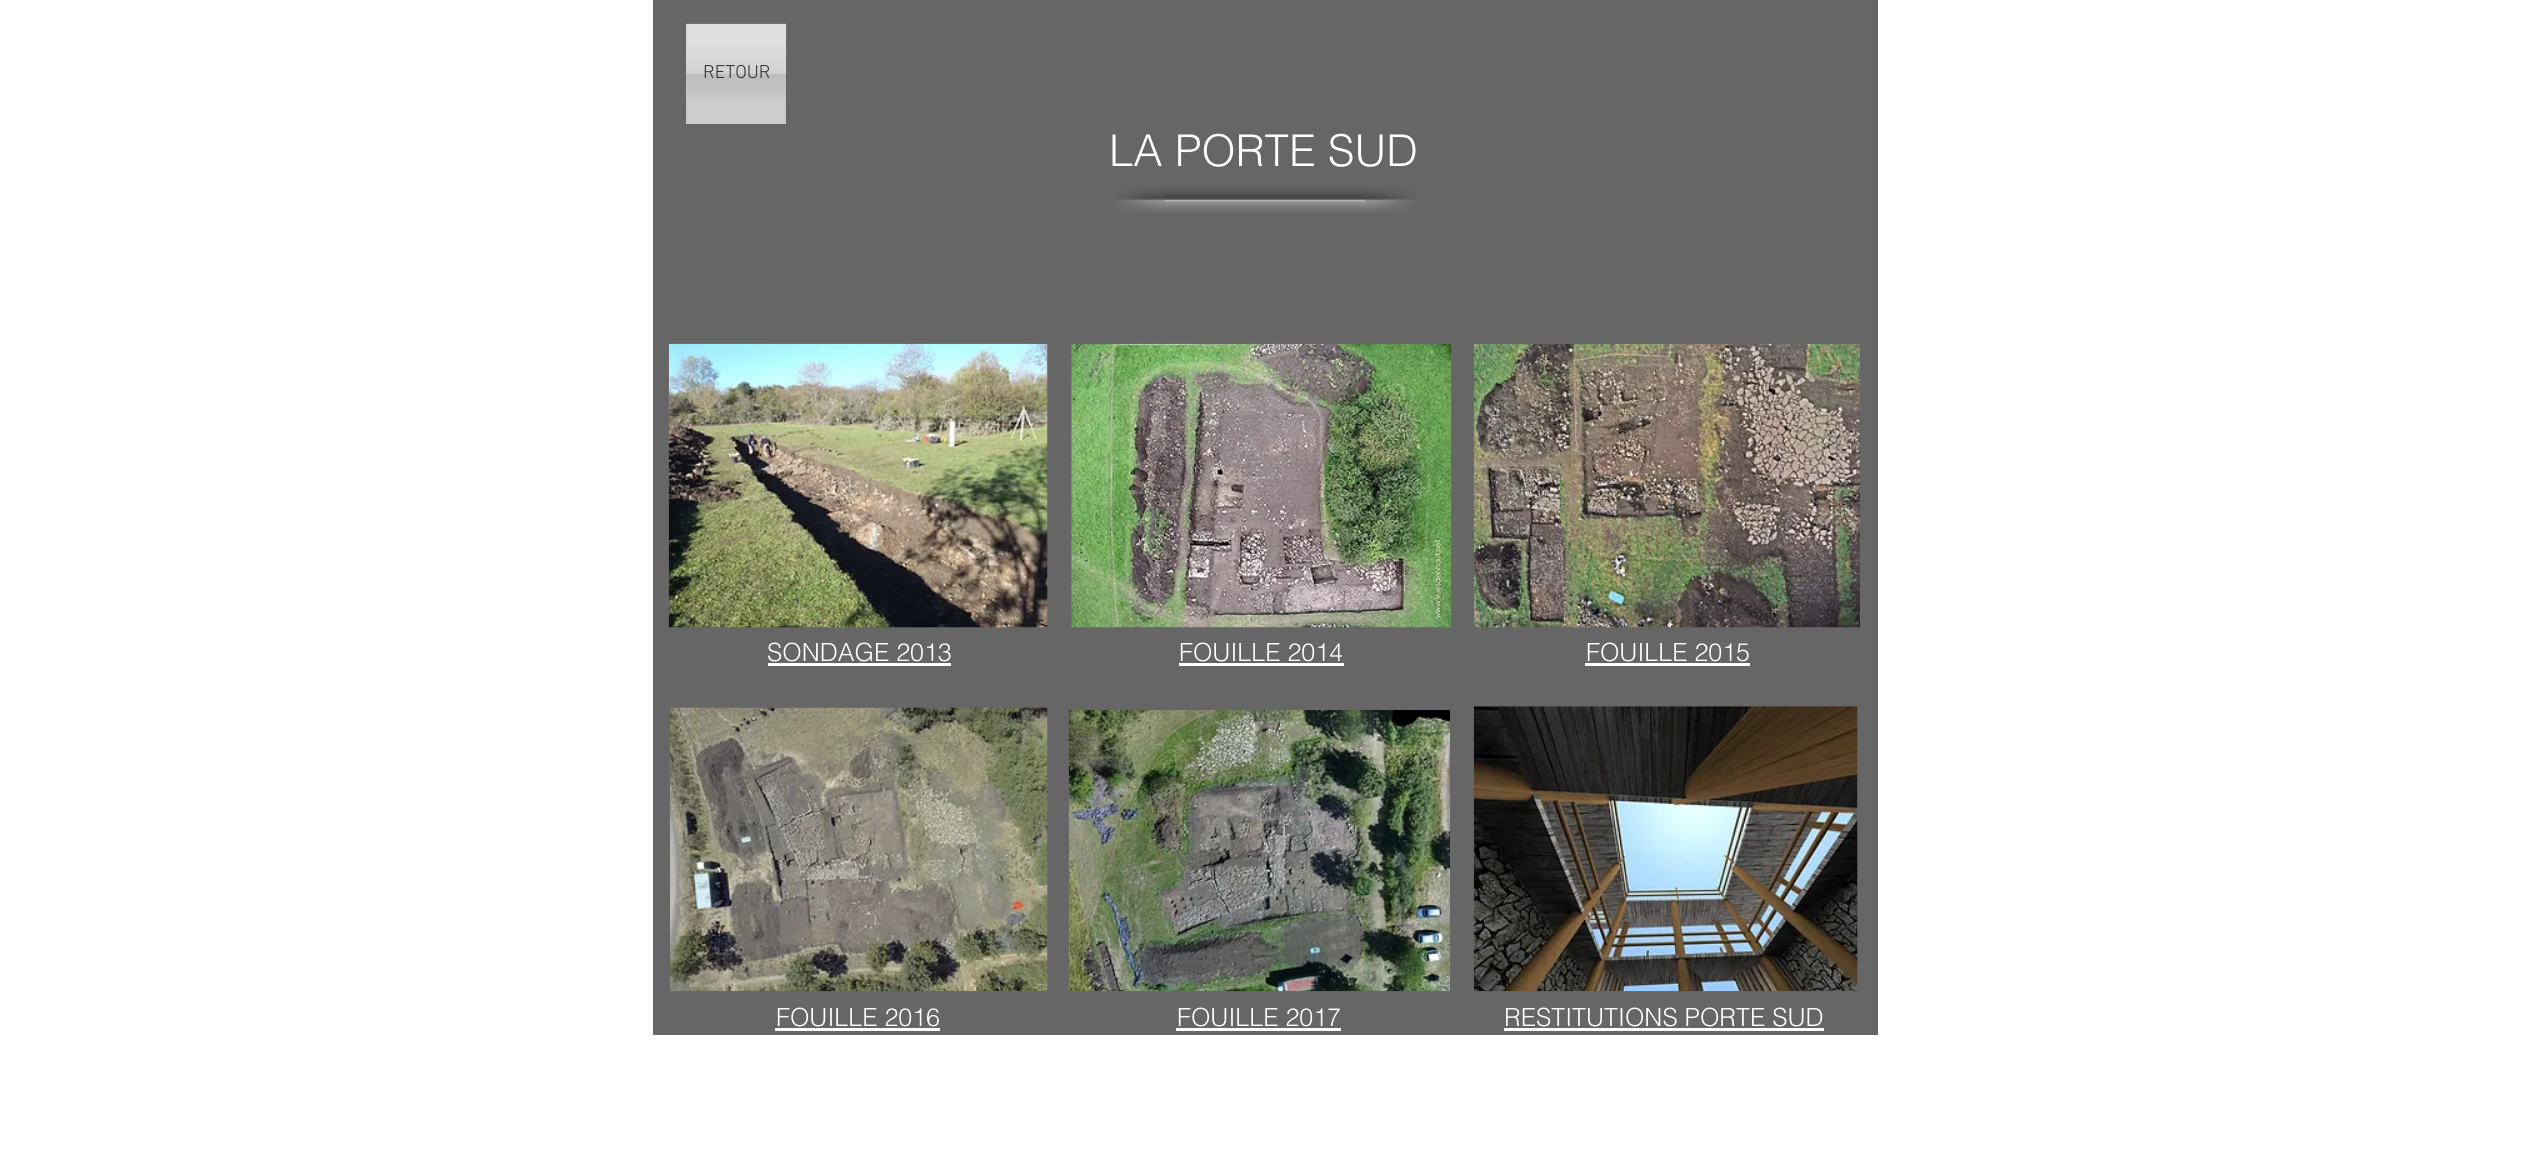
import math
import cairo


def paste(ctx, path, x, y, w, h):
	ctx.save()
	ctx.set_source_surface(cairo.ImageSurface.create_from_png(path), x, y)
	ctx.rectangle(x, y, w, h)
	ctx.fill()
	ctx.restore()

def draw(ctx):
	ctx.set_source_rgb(1, 1, 1)
	ctx.paint()
	ctx.set_source_rgb(0.4, 0.4, 0.4)
	ctx.rectangle(653, 0, 1225, 1035)
	ctx.fill()
	ctx.set_source_rgb(0.8, 0.8, 0.8)
	ctx.rectangle(686, 24, 100, 100)
	ctx.fill()
	paste(ctx, 'media/1.png', 686, 23, 101, 76)
	ctx.select_font_face('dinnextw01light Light')
	ctx.set_font_size(19)
	ctx.set_source_rgb(0.184, 0.18, 0.18)
	ctx.move_to(703, 78)
	ctx.show_text('RETOUR')
	ctx.select_font_face('helvetica Light')
	ctx.set_font_size(43.75)
	ctx.set_source_rgb(1, 1, 1)
	ctx.move_to(1109, 166)
	ctx.show_text('LA PORTE SUD')
	paste(ctx, 'media/2.png', 1165, 186, 200, 28)
	paste(ctx, 'media/3.png', 1114, 187, 51, 26)
	paste(ctx, 'media/4.png', 1365, 187, 51, 26)
	paste(ctx, 'media/5.png', 668, 343, 380, 285)
	paste(ctx, 'media/6.png', 1071, 343, 381, 285)
	paste(ctx, 'media/7.png', 1473, 343, 387, 285)
	ctx.set_font_size(25)
	ctx.move_to(767, 661)
	ctx.show_text('SONDAGE 2013')
	ctx.rectangle(768, 663, 183, 3)
	ctx.fill()
	ctx.move_to(1179, 661)
	ctx.show_text('FOUILLE 2014')
	ctx.rectangle(1179, 663, 165, 3)
	ctx.fill()
	ctx.move_to(1586, 661)
	ctx.show_text('FOUILLE 2015')
	ctx.rectangle(1585, 663, 165, 3)
	ctx.fill()
	paste(ctx, 'media/8.png', 670, 707, 378, 285)
	paste(ctx, 'media/9.png', 1068, 710, 382, 282)
	paste(ctx, 'media/10.png', 1473, 706, 385, 286)
	ctx.move_to(776, 1026)
	ctx.show_text('FOUILLE 2016')
	ctx.rectangle(775, 1028, 165, 3)
	ctx.fill()
	ctx.move_to(1177, 1026)
	ctx.show_text('FOUILLE 2017')
	ctx.rectangle(1176, 1028, 165, 3)
	ctx.fill()
	ctx.move_to(1504, 1026)
	ctx.show_text('RESTITUTIONS PORTE SUD')
	ctx.rectangle(1504, 1028, 320, 3)
	ctx.fill()


surface = cairo.ImageSurface(cairo.FORMAT_RGB24, 2529, 1173)
ctx = cairo.Context(surface)
options = cairo.FontOptions()
options.set_hint_metrics(cairo.HINT_METRICS_OFF)
options.set_hint_style(cairo.HINT_STYLE_NONE)
ctx.set_font_options(options)
ctx.set_miter_limit(4)
draw(ctx)
surface.write_to_png('image.png')
